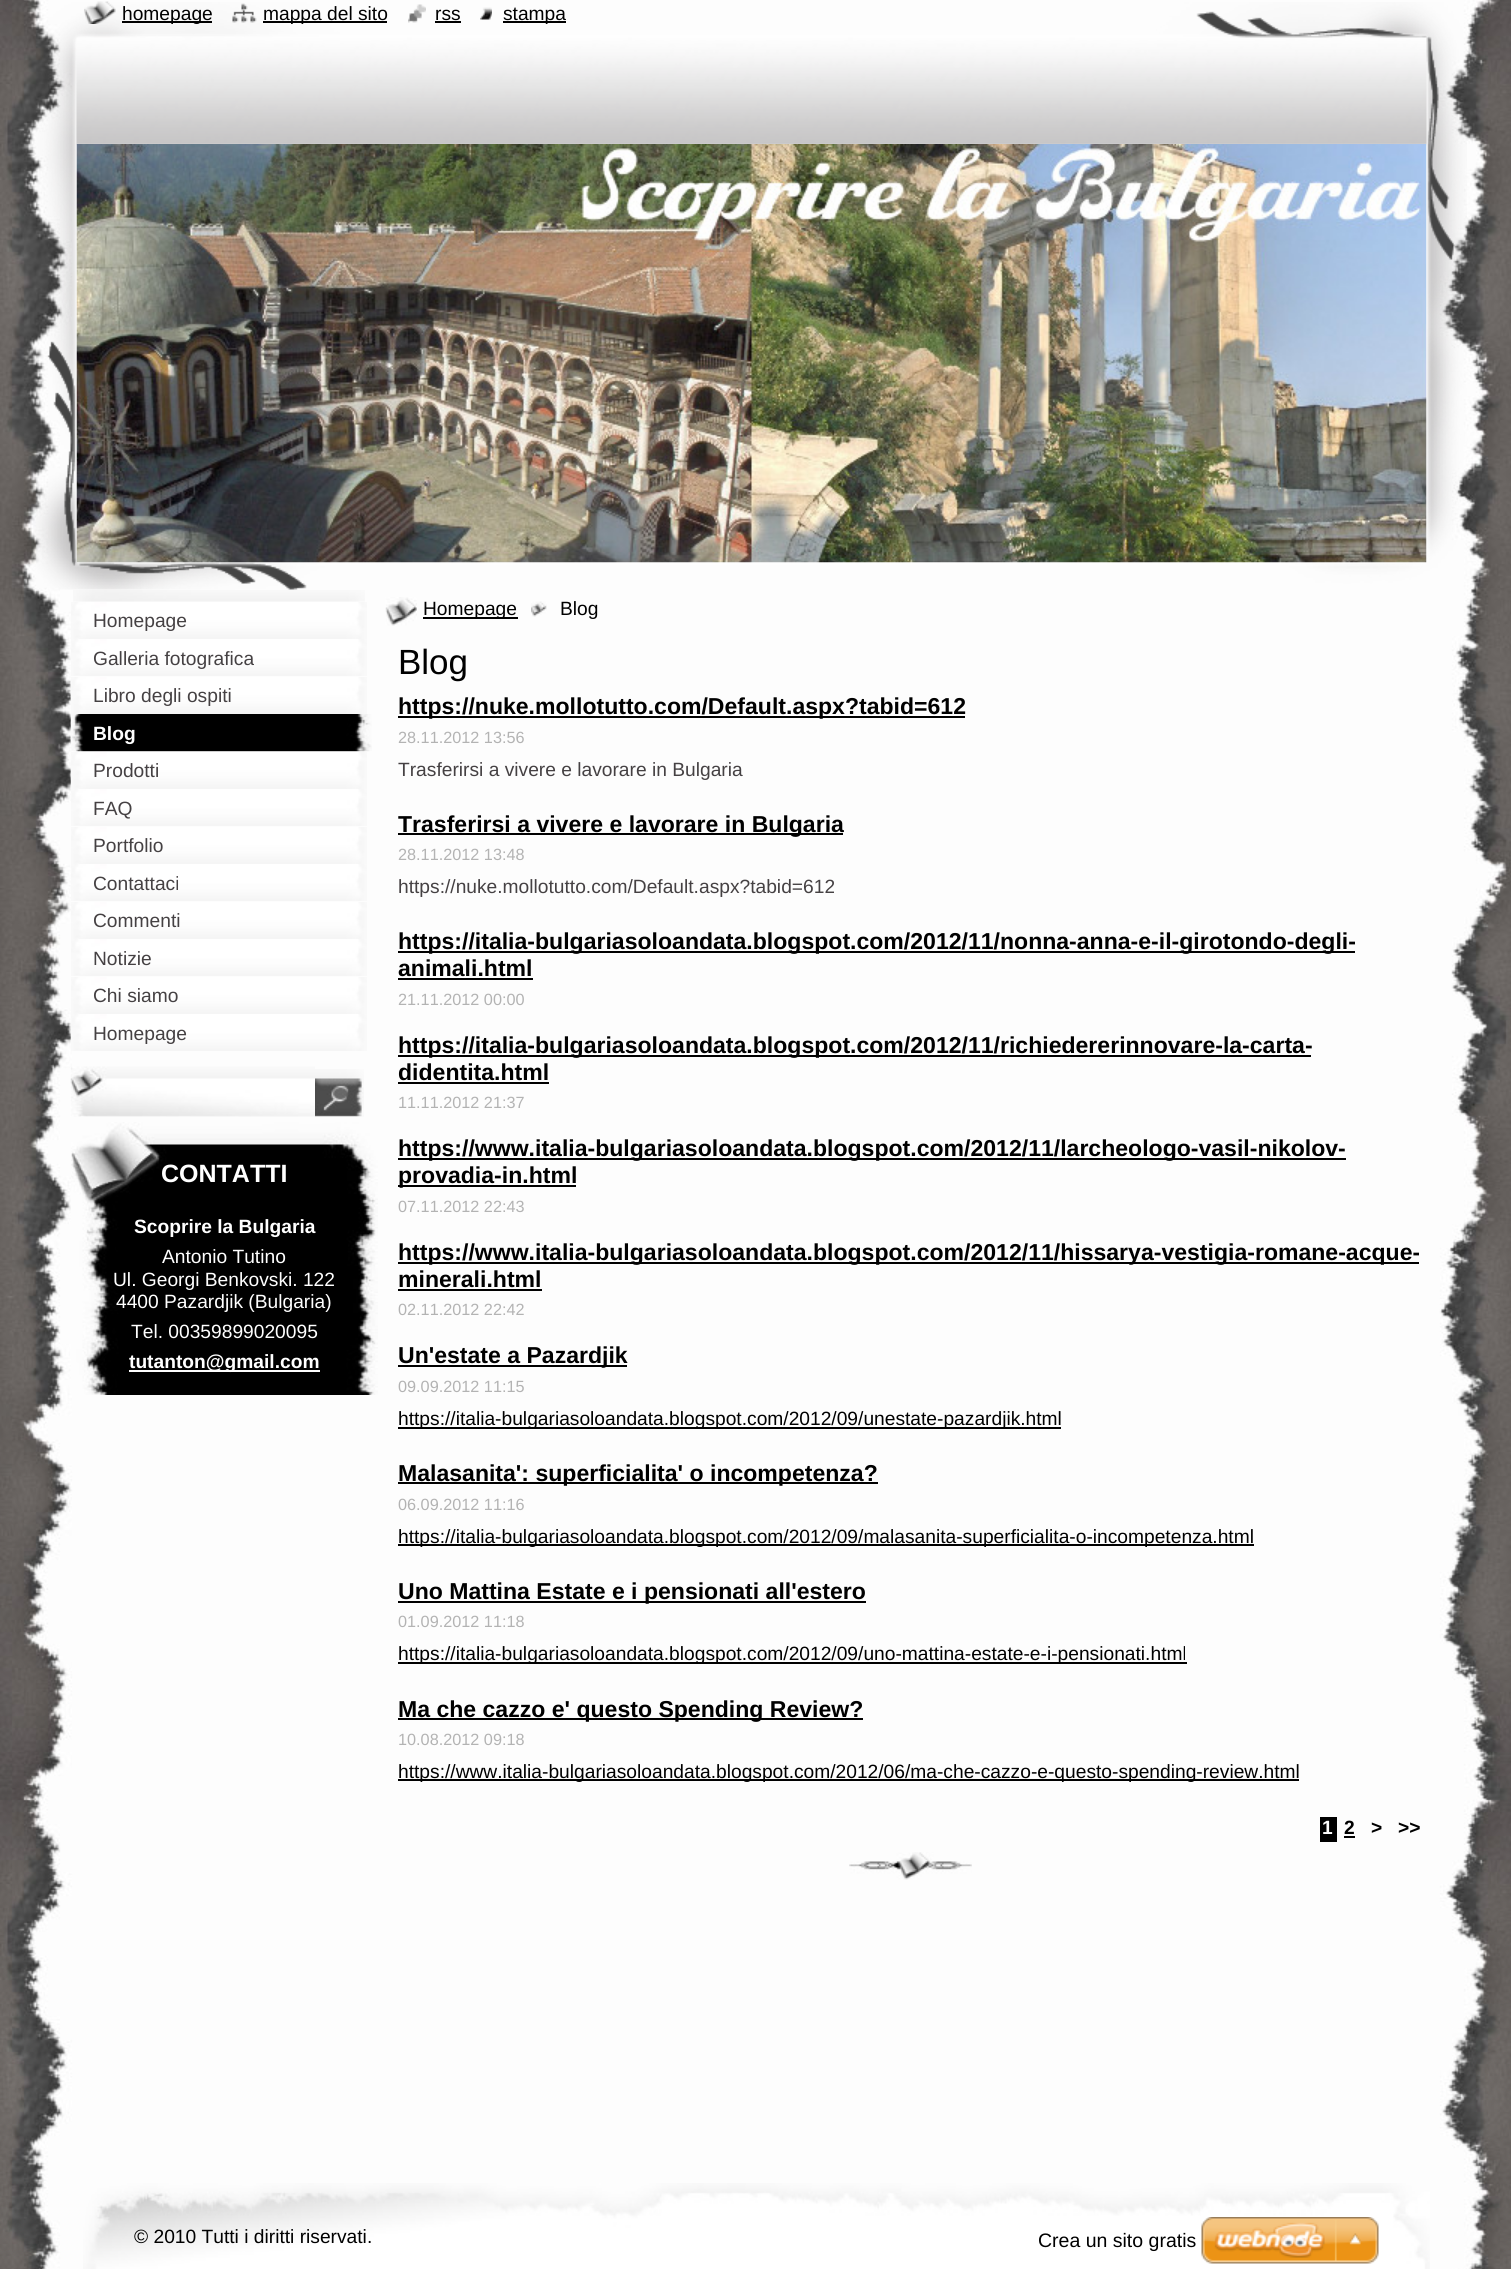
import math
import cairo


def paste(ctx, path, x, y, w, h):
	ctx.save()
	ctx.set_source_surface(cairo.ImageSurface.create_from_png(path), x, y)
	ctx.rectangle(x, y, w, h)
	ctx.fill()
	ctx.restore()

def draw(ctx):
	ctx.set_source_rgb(1, 1, 1)
	ctx.paint()
	paste(ctx, 'media/1.png', 0, 0, 1511, 2269)
	paste(ctx, 'media/2.png', 33, 2, 1434, 588)
	paste(ctx, 'media/3.png', 76, 144, 1351, 419)
	paste(ctx, 'media/4.png', 84, 1, 32, 23)
	ctx.set_source_rgb(0, 0, 0)
	ctx.rectangle(122, 21, 90, 2)
	ctx.fill()
	ctx.select_font_face('Liberation Sans')
	ctx.set_font_size(19.2)
	ctx.move_to(122, 20)
	ctx.show_text('homepage')
	paste(ctx, 'media/5.png', 232, 3, 25, 20)
	ctx.rectangle(263, 21, 124, 2)
	ctx.fill()
	ctx.move_to(263, 20)
	ctx.show_text('mappa del sito')
	paste(ctx, 'media/6.png', 408, 4, 18, 19)
	ctx.move_to(435, 20)
	ctx.show_text('rss')
	ctx.rectangle(435, 21, 26, 2)
	ctx.fill()
	paste(ctx, 'media/7.png', 480, 7, 12, 13)
	ctx.rectangle(503, 21, 63, 2)
	ctx.fill()
	ctx.move_to(503, 20)
	ctx.show_text('stampa')
	paste(ctx, 'media/8.png', 73, 590, 292, 12)
	paste(ctx, 'media/9.png', 71, 602, 296, 37)
	ctx.set_source_rgb(0.271, 0.255, 0.263)
	ctx.move_to(93, 627)
	ctx.show_text('Homepage')
	paste(ctx, 'media/10.png', 71, 639, 296, 37)
	ctx.move_to(93, 665)
	ctx.show_text('Galleria fotografica')
	paste(ctx, 'media/11.png', 70, 677, 297, 37)
	ctx.move_to(93, 702)
	ctx.show_text('Libro degli ospiti')
	paste(ctx, 'media/12.png', 70, 714, 302, 38)
	ctx.select_font_face('Liberation Sans', cairo.FONT_SLANT_NORMAL, cairo.FONT_WEIGHT_BOLD)
	ctx.set_source_rgb(1, 1, 1)
	ctx.move_to(93, 740)
	ctx.show_text('Blog')
	paste(ctx, 'media/13.png', 70, 751, 297, 38)
	ctx.select_font_face('Liberation Sans')
	ctx.set_source_rgb(0.271, 0.255, 0.263)
	ctx.move_to(93, 777)
	ctx.show_text('Prodotti')
	paste(ctx, 'media/10.png', 71, 789, 296, 37)
	ctx.move_to(93, 815)
	ctx.show_text('FAQ')
	paste(ctx, 'media/9.png', 71, 827, 296, 37)
	ctx.move_to(93, 852)
	ctx.show_text('Portfolio')
	paste(ctx, 'media/10.png', 71, 864, 296, 37)
	ctx.move_to(93, 890)
	ctx.show_text('Contattaci')
	paste(ctx, 'media/9.png', 71, 902, 296, 37)
	ctx.move_to(93, 927)
	ctx.show_text('Commenti')
	paste(ctx, 'media/10.png', 71, 939, 296, 37)
	ctx.move_to(93, 965)
	ctx.show_text('Notizie')
	paste(ctx, 'media/9.png', 71, 977, 296, 37)
	ctx.move_to(93, 1002)
	ctx.show_text('Chi siamo')
	paste(ctx, 'media/14.png', 70, 1014, 297, 37)
	ctx.move_to(93, 1040)
	ctx.show_text('Homepage')
	paste(ctx, 'media/15.png', 70, 1066, 245, 51)
	paste(ctx, 'media/16.png', 315, 1069, 49, 48)
	paste(ctx, 'media/17.png', 71, 1122, 307, 273)
	ctx.select_font_face('Liberation Sans', cairo.FONT_SLANT_NORMAL, cairo.FONT_WEIGHT_BOLD)
	ctx.set_font_size(25)
	ctx.set_source_rgb(1, 1, 1)
	ctx.move_to(161, 1182)
	ctx.show_text('CONTATTI')
	ctx.set_font_size(19.2)
	ctx.move_to(134, 1233)
	ctx.show_text('Scoprire la Bulgaria')
	ctx.select_font_face('Liberation Sans')
	for x, y, s in [
		(162, 1263, 'Antonio Tutino'),
		(113, 1286, 'Ul. Georgi Benkovski. 122'),
		(116, 1308, '4400 Pazardjik (Bulgaria)'),
		(131, 1338, 'Tel. 00359899020095'),
	]:
		ctx.move_to(x, y)
		ctx.show_text(s)
	ctx.rectangle(129, 1370, 191, 2)
	ctx.fill()
	ctx.select_font_face('Liberation Sans', cairo.FONT_SLANT_NORMAL, cairo.FONT_WEIGHT_BOLD)
	ctx.move_to(129, 1368)
	ctx.show_text('tutanton@gmail.com')
	paste(ctx, 'media/18.png', 385, 597, 32, 29)
	ctx.set_source_rgb(0, 0, 0)
	ctx.rectangle(423, 617, 95, 2)
	ctx.fill()
	ctx.select_font_face('Liberation Sans')
	ctx.move_to(423, 615)
	ctx.show_text('Homepage')
	paste(ctx, 'media/19.png', 531, 601, 16, 16)
	ctx.move_to(560, 615)
	ctx.show_text('Blog')
	paste(ctx, 'media/20.png', 849, 1852, 123, 28)
	ctx.set_font_size(35)
	ctx.move_to(398, 674)
	ctx.show_text('Blog')
	ctx.rectangle(398, 716, 567, 2)
	ctx.fill()
	ctx.select_font_face('Liberation Sans', cairo.FONT_SLANT_NORMAL, cairo.FONT_WEIGHT_BOLD)
	ctx.set_font_size(23.05)
	ctx.move_to(398, 714)
	ctx.show_text('https://nuke.mollotutto.com/Default.aspx?tabid=612')
	ctx.select_font_face('Liberation Sans')
	ctx.set_font_size(16.25)
	ctx.set_source_rgb(0.702, 0.702, 0.702)
	ctx.move_to(398, 743)
	ctx.show_text('28.11.2012 13:56')
	ctx.set_font_size(19.2)
	ctx.set_source_rgb(0.271, 0.255, 0.263)
	ctx.move_to(398, 776)
	ctx.show_text('Trasferirsi a vivere e lavorare in Bulgaria')
	ctx.set_source_rgb(0, 0, 0)
	ctx.rectangle(398, 833, 445, 2)
	ctx.fill()
	ctx.select_font_face('Liberation Sans', cairo.FONT_SLANT_NORMAL, cairo.FONT_WEIGHT_BOLD)
	ctx.set_font_size(23.05)
	ctx.move_to(398, 832)
	ctx.show_text('Trasferirsi a vivere e lavorare in Bulgaria')
	ctx.select_font_face('Liberation Sans')
	ctx.set_font_size(16.25)
	ctx.set_source_rgb(0.702, 0.702, 0.702)
	ctx.move_to(398, 860)
	ctx.show_text('28.11.2012 13:48')
	ctx.set_font_size(19.2)
	ctx.set_source_rgb(0.271, 0.255, 0.263)
	ctx.move_to(398, 893)
	ctx.show_text('https://nuke.mollotutto.com/Default.aspx?tabid=612')
	ctx.set_source_rgb(0, 0, 0)
	ctx.rectangle(398, 951, 957, 2)
	ctx.fill()
	ctx.select_font_face('Liberation Sans', cairo.FONT_SLANT_NORMAL, cairo.FONT_WEIGHT_BOLD)
	ctx.set_font_size(23.05)
	ctx.move_to(398, 949)
	ctx.show_text('https://italia-bulgariasoloandata.blogspot.com/2012/11/nonna-anna-e-il-girotondo-degli-')
	ctx.move_to(398, 976)
	ctx.show_text('animali.html')
	ctx.rectangle(398, 978, 135, 2)
	ctx.fill()
	ctx.select_font_face('Liberation Sans')
	ctx.set_font_size(16.25)
	ctx.set_source_rgb(0.702, 0.702, 0.702)
	ctx.move_to(398, 1005)
	ctx.show_text('21.11.2012 00:00')
	ctx.set_source_rgb(0, 0, 0)
	ctx.rectangle(398, 1055, 913, 2)
	ctx.fill()
	ctx.select_font_face('Liberation Sans', cairo.FONT_SLANT_NORMAL, cairo.FONT_WEIGHT_BOLD)
	ctx.set_font_size(23.05)
	ctx.move_to(398, 1053)
	ctx.show_text('https://italia-bulgariasoloandata.blogspot.com/2012/11/richiedererinnovare-la-carta-')
	ctx.move_to(398, 1080)
	ctx.show_text('didentita.html')
	ctx.rectangle(398, 1082, 151, 2)
	ctx.fill()
	ctx.select_font_face('Liberation Sans')
	ctx.set_font_size(16.25)
	ctx.set_source_rgb(0.702, 0.702, 0.702)
	ctx.move_to(398, 1108)
	ctx.show_text('11.11.2012 21:37')
	ctx.set_source_rgb(0, 0, 0)
	ctx.rectangle(398, 1158, 948, 2)
	ctx.fill()
	ctx.select_font_face('Liberation Sans', cairo.FONT_SLANT_NORMAL, cairo.FONT_WEIGHT_BOLD)
	ctx.set_font_size(23.05)
	ctx.move_to(398, 1156)
	ctx.show_text('https://www.italia-bulgariasoloandata.blogspot.com/2012/11/larcheologo-vasil-nikolov-')
	ctx.rectangle(398, 1185, 178, 2)
	ctx.fill()
	ctx.move_to(398, 1183)
	ctx.show_text('provadia-in.html')
	ctx.select_font_face('Liberation Sans')
	ctx.set_font_size(16.25)
	ctx.set_source_rgb(0.702, 0.702, 0.702)
	ctx.move_to(398, 1212)
	ctx.show_text('07.11.2012 22:43')
	ctx.set_source_rgb(0, 0, 0)
	ctx.rectangle(398, 1262, 1021, 2)
	ctx.fill()
	ctx.select_font_face('Liberation Sans', cairo.FONT_SLANT_NORMAL, cairo.FONT_WEIGHT_BOLD)
	ctx.set_font_size(23.05)
	ctx.move_to(398, 1260)
	ctx.show_text('https://www.italia-bulgariasoloandata.blogspot.com/2012/11/hissarya-vestigia-romane-acque-')
	ctx.move_to(398, 1287)
	ctx.show_text('minerali.html')
	ctx.rectangle(398, 1289, 144, 2)
	ctx.fill()
	ctx.select_font_face('Liberation Sans')
	ctx.set_font_size(16.25)
	ctx.set_source_rgb(0.702, 0.702, 0.702)
	ctx.move_to(398, 1315)
	ctx.show_text('02.11.2012 22:42')
	ctx.set_source_rgb(0, 0, 0)
	ctx.rectangle(398, 1365, 229, 2)
	ctx.fill()
	ctx.select_font_face('Liberation Sans', cairo.FONT_SLANT_NORMAL, cairo.FONT_WEIGHT_BOLD)
	ctx.set_font_size(23.05)
	ctx.move_to(398, 1363)
	ctx.show_text('Un\'estate a Pazardjik')
	ctx.select_font_face('Liberation Sans')
	ctx.set_font_size(16.25)
	ctx.set_source_rgb(0.702, 0.702, 0.702)
	ctx.move_to(398, 1392)
	ctx.show_text('09.09.2012 11:15')
	ctx.set_source_rgb(0, 0, 0)
	ctx.rectangle(398, 1427, 663, 2)
	ctx.fill()
	ctx.set_font_size(19.2)
	ctx.move_to(398, 1425)
	ctx.show_text('https://italia-bulgariasoloandata.blogspot.com/2012/09/unestate-pazardjik.html')
	ctx.rectangle(398, 1482, 480, 2)
	ctx.fill()
	ctx.select_font_face('Liberation Sans', cairo.FONT_SLANT_NORMAL, cairo.FONT_WEIGHT_BOLD)
	ctx.set_font_size(23.05)
	ctx.move_to(398, 1481)
	ctx.show_text('Malasanita\': superficialita\' o incompetenza?')
	ctx.select_font_face('Liberation Sans')
	ctx.set_font_size(16.25)
	ctx.set_source_rgb(0.702, 0.702, 0.702)
	ctx.move_to(398, 1510)
	ctx.show_text('06.09.2012 11:16')
	ctx.set_source_rgb(0, 0, 0)
	ctx.rectangle(398, 1544, 856, 2)
	ctx.fill()
	ctx.set_font_size(19.2)
	ctx.move_to(398, 1543)
	ctx.show_text('https://italia-bulgariasoloandata.blogspot.com/2012/09/malasanita-superficialita-o-incompetenza.html')
	ctx.rectangle(398, 1601, 468, 2)
	ctx.fill()
	ctx.select_font_face('Liberation Sans', cairo.FONT_SLANT_NORMAL, cairo.FONT_WEIGHT_BOLD)
	ctx.set_font_size(23.05)
	ctx.move_to(398, 1599)
	ctx.show_text('Uno Mattina Estate e i pensionati all\'estero')
	ctx.select_font_face('Liberation Sans')
	ctx.set_font_size(16.25)
	ctx.set_source_rgb(0.702, 0.702, 0.702)
	ctx.move_to(398, 1627)
	ctx.show_text('01.09.2012 11:18')
	ctx.set_source_rgb(0, 0, 0)
	ctx.rectangle(398, 1662, 789, 2)
	ctx.fill()
	ctx.set_font_size(19.2)
	ctx.move_to(398, 1660)
	ctx.show_text('https://italia-bulgariasoloandata.blogspot.com/2012/09/uno-mattina-estate-e-i-pensionati.html')
	ctx.rectangle(398, 1718, 465, 2)
	ctx.fill()
	ctx.select_font_face('Liberation Sans', cairo.FONT_SLANT_NORMAL, cairo.FONT_WEIGHT_BOLD)
	ctx.set_font_size(23.05)
	ctx.move_to(398, 1717)
	ctx.show_text('Ma che cazzo e\' questo Spending Review?')
	ctx.select_font_face('Liberation Sans')
	ctx.set_font_size(16.25)
	ctx.set_source_rgb(0.702, 0.702, 0.702)
	ctx.move_to(398, 1745)
	ctx.show_text('10.08.2012 09:18')
	ctx.set_source_rgb(0, 0, 0)
	ctx.rectangle(398, 1779, 901, 2)
	ctx.fill()
	ctx.set_font_size(19.2)
	ctx.move_to(398, 1778)
	ctx.show_text('https://www.italia-bulgariasoloandata.blogspot.com/2012/06/ma-che-cazzo-e-questo-spending-review.html')
	ctx.rectangle(1320, 1817, 17, 25)
	ctx.fill()
	ctx.select_font_face('Liberation Sans', cairo.FONT_SLANT_NORMAL, cairo.FONT_WEIGHT_BOLD)
	ctx.set_source_rgb(1, 1, 1)
	ctx.move_to(1322, 1834)
	ctx.show_text('1')
	ctx.set_source_rgb(0, 0, 0)
	ctx.move_to(1344, 1834)
	ctx.show_text('2')
	ctx.rectangle(1344, 1836, 11, 2)
	ctx.fill()
	ctx.move_to(1371, 1834)
	ctx.show_text('>')
	ctx.move_to(1398, 1834)
	ctx.show_text('>>')
	paste(ctx, 'media/21.png', 83, 2183, 1347, 86)
	ctx.save()
	ctx.rectangle(134, 2225, 630, 30)
	ctx.clip()
	ctx.select_font_face('Liberation Sans')
	ctx.move_to(134, 2243)
	ctx.show_text('© 2010 Tutti i diritti riservati.')
	ctx.restore()
	ctx.select_font_face('Liberation Sans')
	ctx.set_font_size(19.5)
	ctx.move_to(1038, 2247)
	ctx.show_text('Crea un sito gratis')
	paste(ctx, 'media/22.png', 1201, 2217, 178, 47)


surface = cairo.ImageSurface(cairo.FORMAT_RGB24, 1511, 2269)
ctx = cairo.Context(surface)
options = cairo.FontOptions()
options.set_hint_metrics(cairo.HINT_METRICS_OFF)
options.set_hint_style(cairo.HINT_STYLE_NONE)
ctx.set_font_options(options)
ctx.set_miter_limit(4)
draw(ctx)
surface.write_to_png('image.png')
